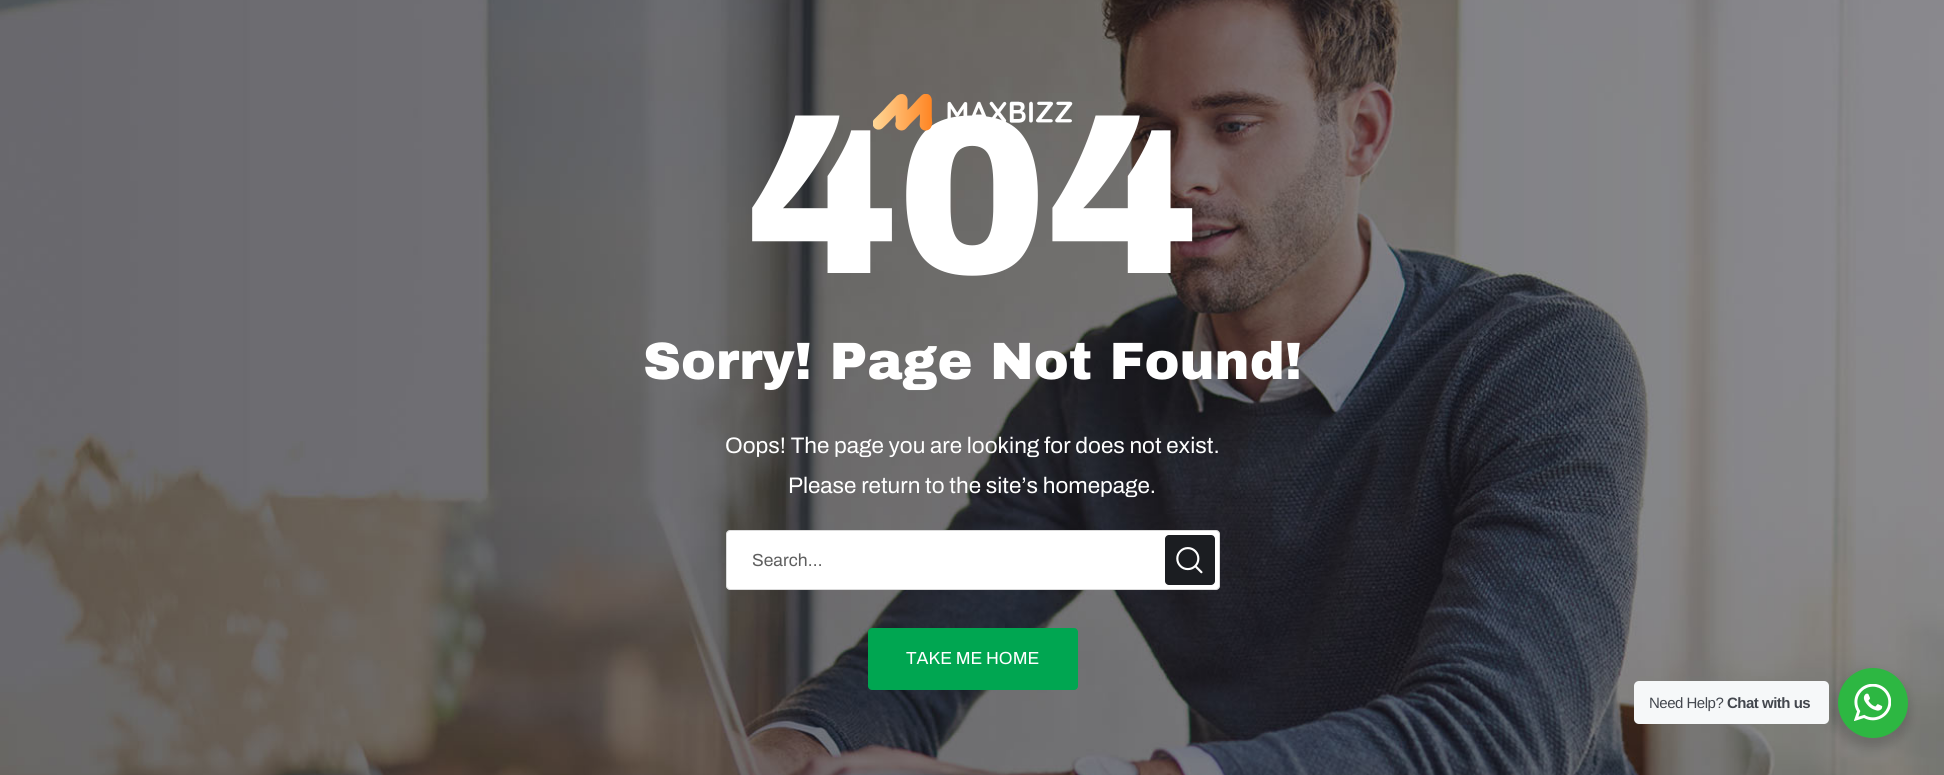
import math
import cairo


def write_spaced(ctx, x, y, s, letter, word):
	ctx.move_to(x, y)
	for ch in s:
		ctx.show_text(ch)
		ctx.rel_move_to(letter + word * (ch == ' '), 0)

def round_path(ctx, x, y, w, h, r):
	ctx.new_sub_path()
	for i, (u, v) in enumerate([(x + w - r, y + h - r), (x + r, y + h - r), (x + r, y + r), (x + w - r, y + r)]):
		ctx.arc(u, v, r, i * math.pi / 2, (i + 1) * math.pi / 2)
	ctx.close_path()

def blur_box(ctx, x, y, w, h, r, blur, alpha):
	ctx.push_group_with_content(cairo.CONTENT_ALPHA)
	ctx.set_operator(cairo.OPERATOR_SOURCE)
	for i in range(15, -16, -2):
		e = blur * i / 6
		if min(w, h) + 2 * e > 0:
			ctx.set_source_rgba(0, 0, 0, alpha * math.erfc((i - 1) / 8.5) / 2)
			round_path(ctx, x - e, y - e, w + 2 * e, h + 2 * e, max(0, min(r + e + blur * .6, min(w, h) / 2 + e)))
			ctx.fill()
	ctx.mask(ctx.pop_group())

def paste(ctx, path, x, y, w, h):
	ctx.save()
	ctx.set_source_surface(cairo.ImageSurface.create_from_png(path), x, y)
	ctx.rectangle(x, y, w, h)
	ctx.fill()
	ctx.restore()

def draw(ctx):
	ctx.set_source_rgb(1, 1, 1)
	ctx.paint()
	paste(ctx, 'media/1.png', 0, 0, 1944, 775)
	ctx.select_font_face('Archivo Black Black')
	ctx.set_font_size(225)
	ctx.set_source_rgb(1, 1, 1)
	ctx.move_to(747, 273)
	ctx.show_text('404')
	paste(ctx, 'media/2.png', 873, 94, 200, 37)
	ctx.set_font_size(52.5)
	ctx.move_to(643, 379)
	ctx.show_text('Sorry! Page Not Found!')
	ctx.select_font_face('Archivo SemiBold')
	ctx.set_font_size(22.5)
	ctx.move_to(725, 453)
	ctx.show_text('Oops! The page you are looking for does not exist.')
	ctx.move_to(788, 493)
	ctx.show_text('Please return to the site’s homepage.')
	round_path(ctx, 726.5, 530.5, 493, 59, 3.5)
	ctx.fill_preserve()
	ctx.set_source_rgb(0.859, 0.859, 0.859)
	ctx.set_line_width(1)
	ctx.stroke()
	ctx.set_font_size(17.5)
	ctx.set_source_rgb(0.373, 0.373, 0.373)
	ctx.move_to(752, 566)
	ctx.show_text('Search…')
	ctx.set_source_rgb(0.106, 0.114, 0.129)
	round_path(ctx, 1165, 535, 50, 50, 4)
	ctx.fill()
	paste(ctx, 'media/3.png', 1176, 547, 27, 27)
	ctx.set_source_rgb(0, 0.651, 0.318)
	round_path(ctx, 868, 628, 210, 62, 4)
	ctx.fill()
	ctx.set_source_rgb(1, 1, 1)
	ctx.move_to(906, 664)
	ctx.show_text('TAKE ME HOME')
	ctx.set_source_rgb(0, 0, 0)
	blur_box(ctx, 1835, 673, 75, 75, 37.5, 5, 0.14)
	ctx.set_source_rgb(0.961, 0.969, 0.976)
	round_path(ctx, 1634, 681, 195, 43, 5)
	ctx.fill()
	ctx.select_font_face('Liberation Sans')
	ctx.set_font_size(15)
	ctx.set_source_rgb(0.263, 0.278, 0.306)
	write_spaced(ctx, 1649, 708, 'Need Help?', -0.5, 0)
	ctx.select_font_face('Liberation Sans', cairo.FONT_SLANT_NORMAL, cairo.FONT_WEIGHT_BOLD)
	write_spaced(ctx, 1727, 708, 'Chat with us', -0.5, 0)
	ctx.set_source_rgb(0.176, 0.718, 0.259)
	ctx.new_path()
	ctx.arc(1873, 703, 35, 0, 2 * math.pi)
	ctx.fill()
	paste(ctx, 'media/4.png', 1854, 684, 37, 37)


surface = cairo.ImageSurface(cairo.FORMAT_RGB24, 1944, 775)
ctx = cairo.Context(surface)
options = cairo.FontOptions()
options.set_hint_metrics(cairo.HINT_METRICS_OFF)
options.set_hint_style(cairo.HINT_STYLE_NONE)
ctx.set_font_options(options)
ctx.set_miter_limit(4)
draw(ctx)
surface.write_to_png('image.png')
